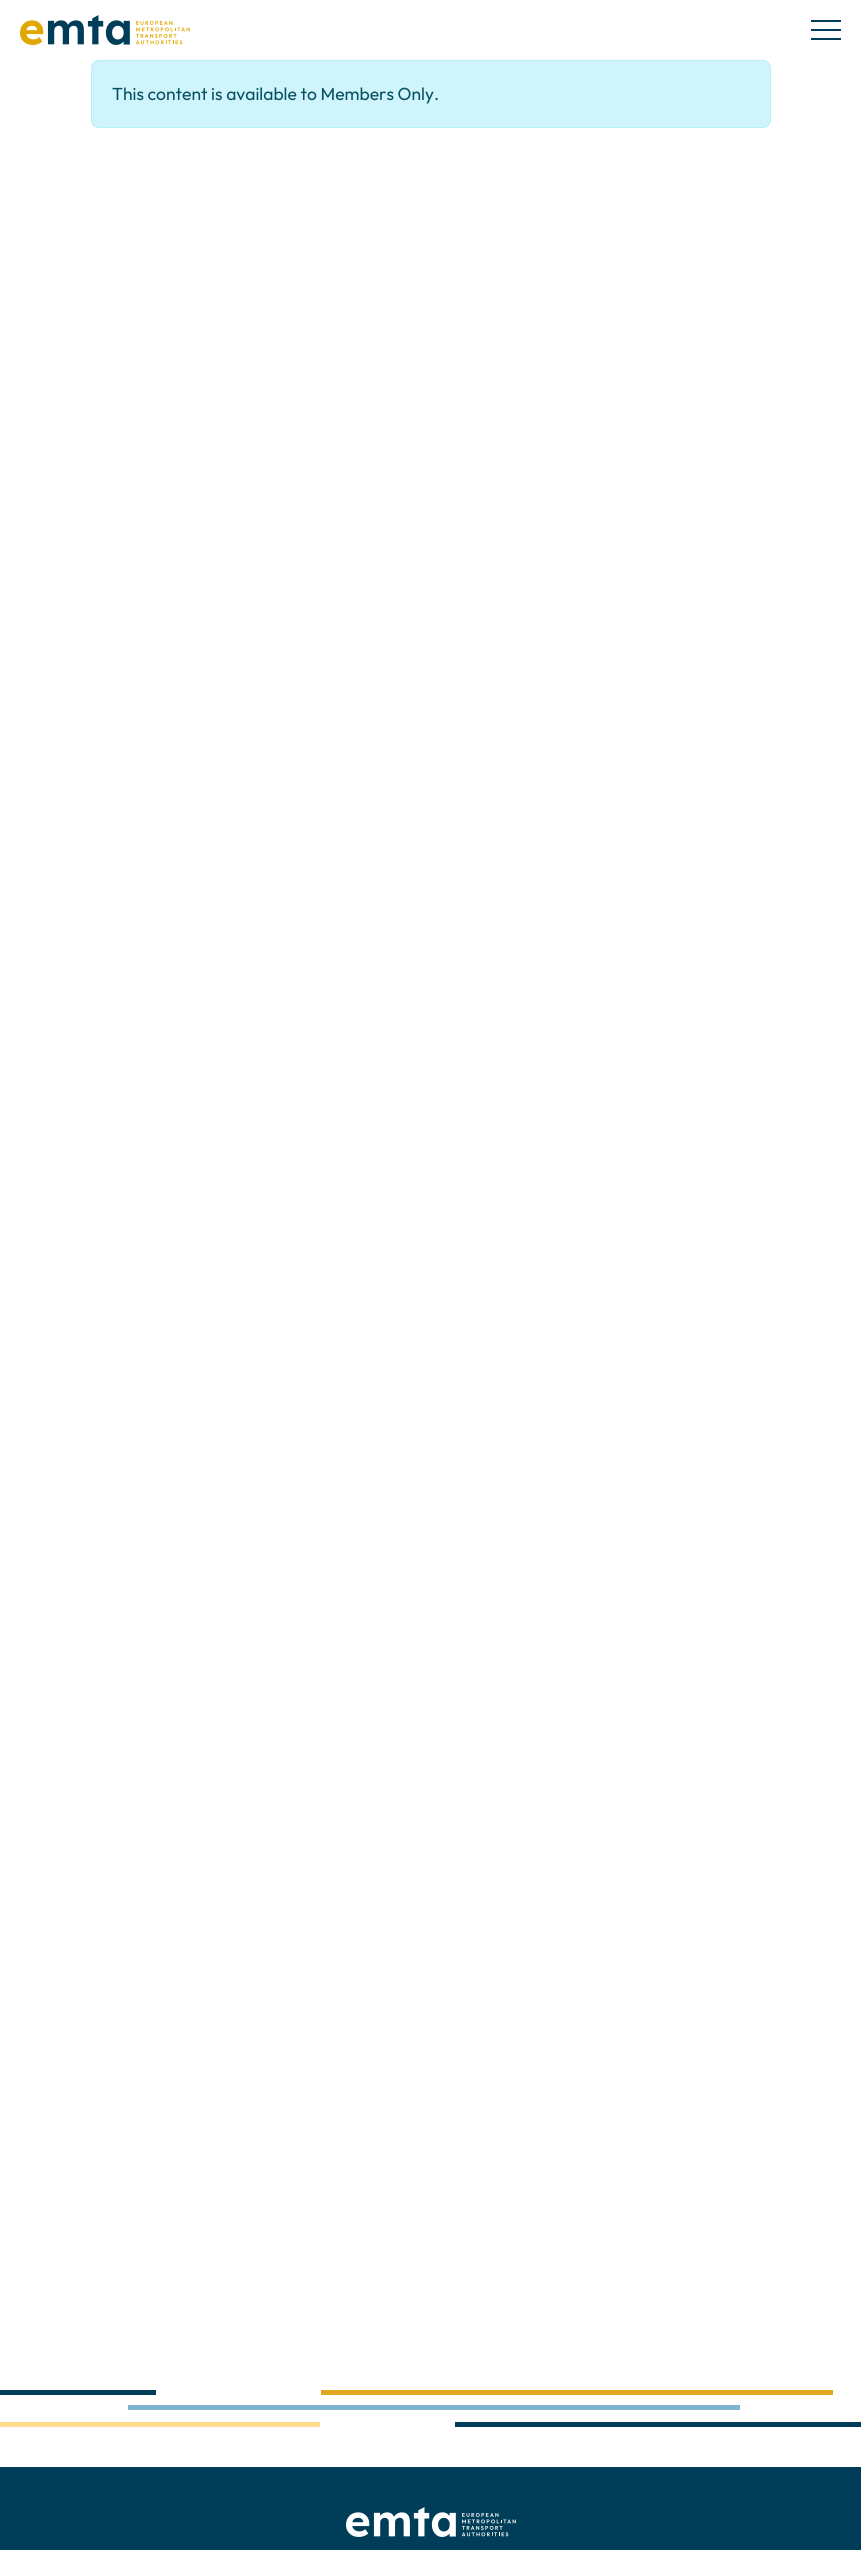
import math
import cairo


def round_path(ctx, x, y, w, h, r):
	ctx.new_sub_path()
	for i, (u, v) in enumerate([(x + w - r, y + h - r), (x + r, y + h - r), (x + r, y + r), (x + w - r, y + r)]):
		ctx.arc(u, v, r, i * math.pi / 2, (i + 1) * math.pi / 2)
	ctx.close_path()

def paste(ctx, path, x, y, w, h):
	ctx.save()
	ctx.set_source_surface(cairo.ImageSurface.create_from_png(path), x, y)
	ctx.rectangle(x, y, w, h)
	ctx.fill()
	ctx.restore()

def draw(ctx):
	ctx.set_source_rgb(1, 1, 1)
	ctx.paint()
	paste(ctx, 'media/1.png', 20, 15, 170, 30)
	ctx.set_source_rgb(0, 0.239, 0.345)
	ctx.rectangle(811, 20, 30, 2)
	ctx.rectangle(811, 29, 30, 2)
	ctx.rectangle(811, 38, 30, 2)
	ctx.fill()
	ctx.set_source_rgb(0.812, 0.957, 0.988)
	round_path(ctx, 91.5, 60.5, 679, 67, 7.5)
	ctx.fill_preserve()
	ctx.set_source_rgb(0.714, 0.937, 0.984)
	ctx.set_line_width(1)
	ctx.stroke()
	ctx.select_font_face('Outfit')
	ctx.set_font_size(17.5)
	ctx.set_source_rgb(0.02, 0.318, 0.376)
	ctx.move_to(112, 100)
	ctx.show_text('This content is available to Members Only.')
	ctx.set_source_rgb(0, 0.239, 0.345)
	ctx.rectangle(0, 2390, 156, 5)
	ctx.fill()
	ctx.set_source_rgb(0.878, 0.655, 0.122)
	ctx.rectangle(321, 2390, 512, 5)
	ctx.fill()
	ctx.set_source_rgb(0.502, 0.702, 0.812)
	ctx.rectangle(128, 2405, 612, 5)
	ctx.fill()
	ctx.set_source_rgb(1, 0.863, 0.561)
	ctx.rectangle(0, 2422, 320, 5)
	ctx.fill()
	ctx.set_source_rgb(0, 0.239, 0.345)
	ctx.rectangle(455, 2422, 406, 5)
	ctx.rectangle(0, 2467, 861, 83)
	ctx.fill()
	paste(ctx, 'media/2.png', 346, 2507, 170, 30)


surface = cairo.ImageSurface(cairo.FORMAT_RGB24, 861, 2550)
ctx = cairo.Context(surface)
options = cairo.FontOptions()
options.set_hint_metrics(cairo.HINT_METRICS_OFF)
options.set_hint_style(cairo.HINT_STYLE_NONE)
ctx.set_font_options(options)
ctx.set_miter_limit(4)
draw(ctx)
surface.write_to_png('image.png')
